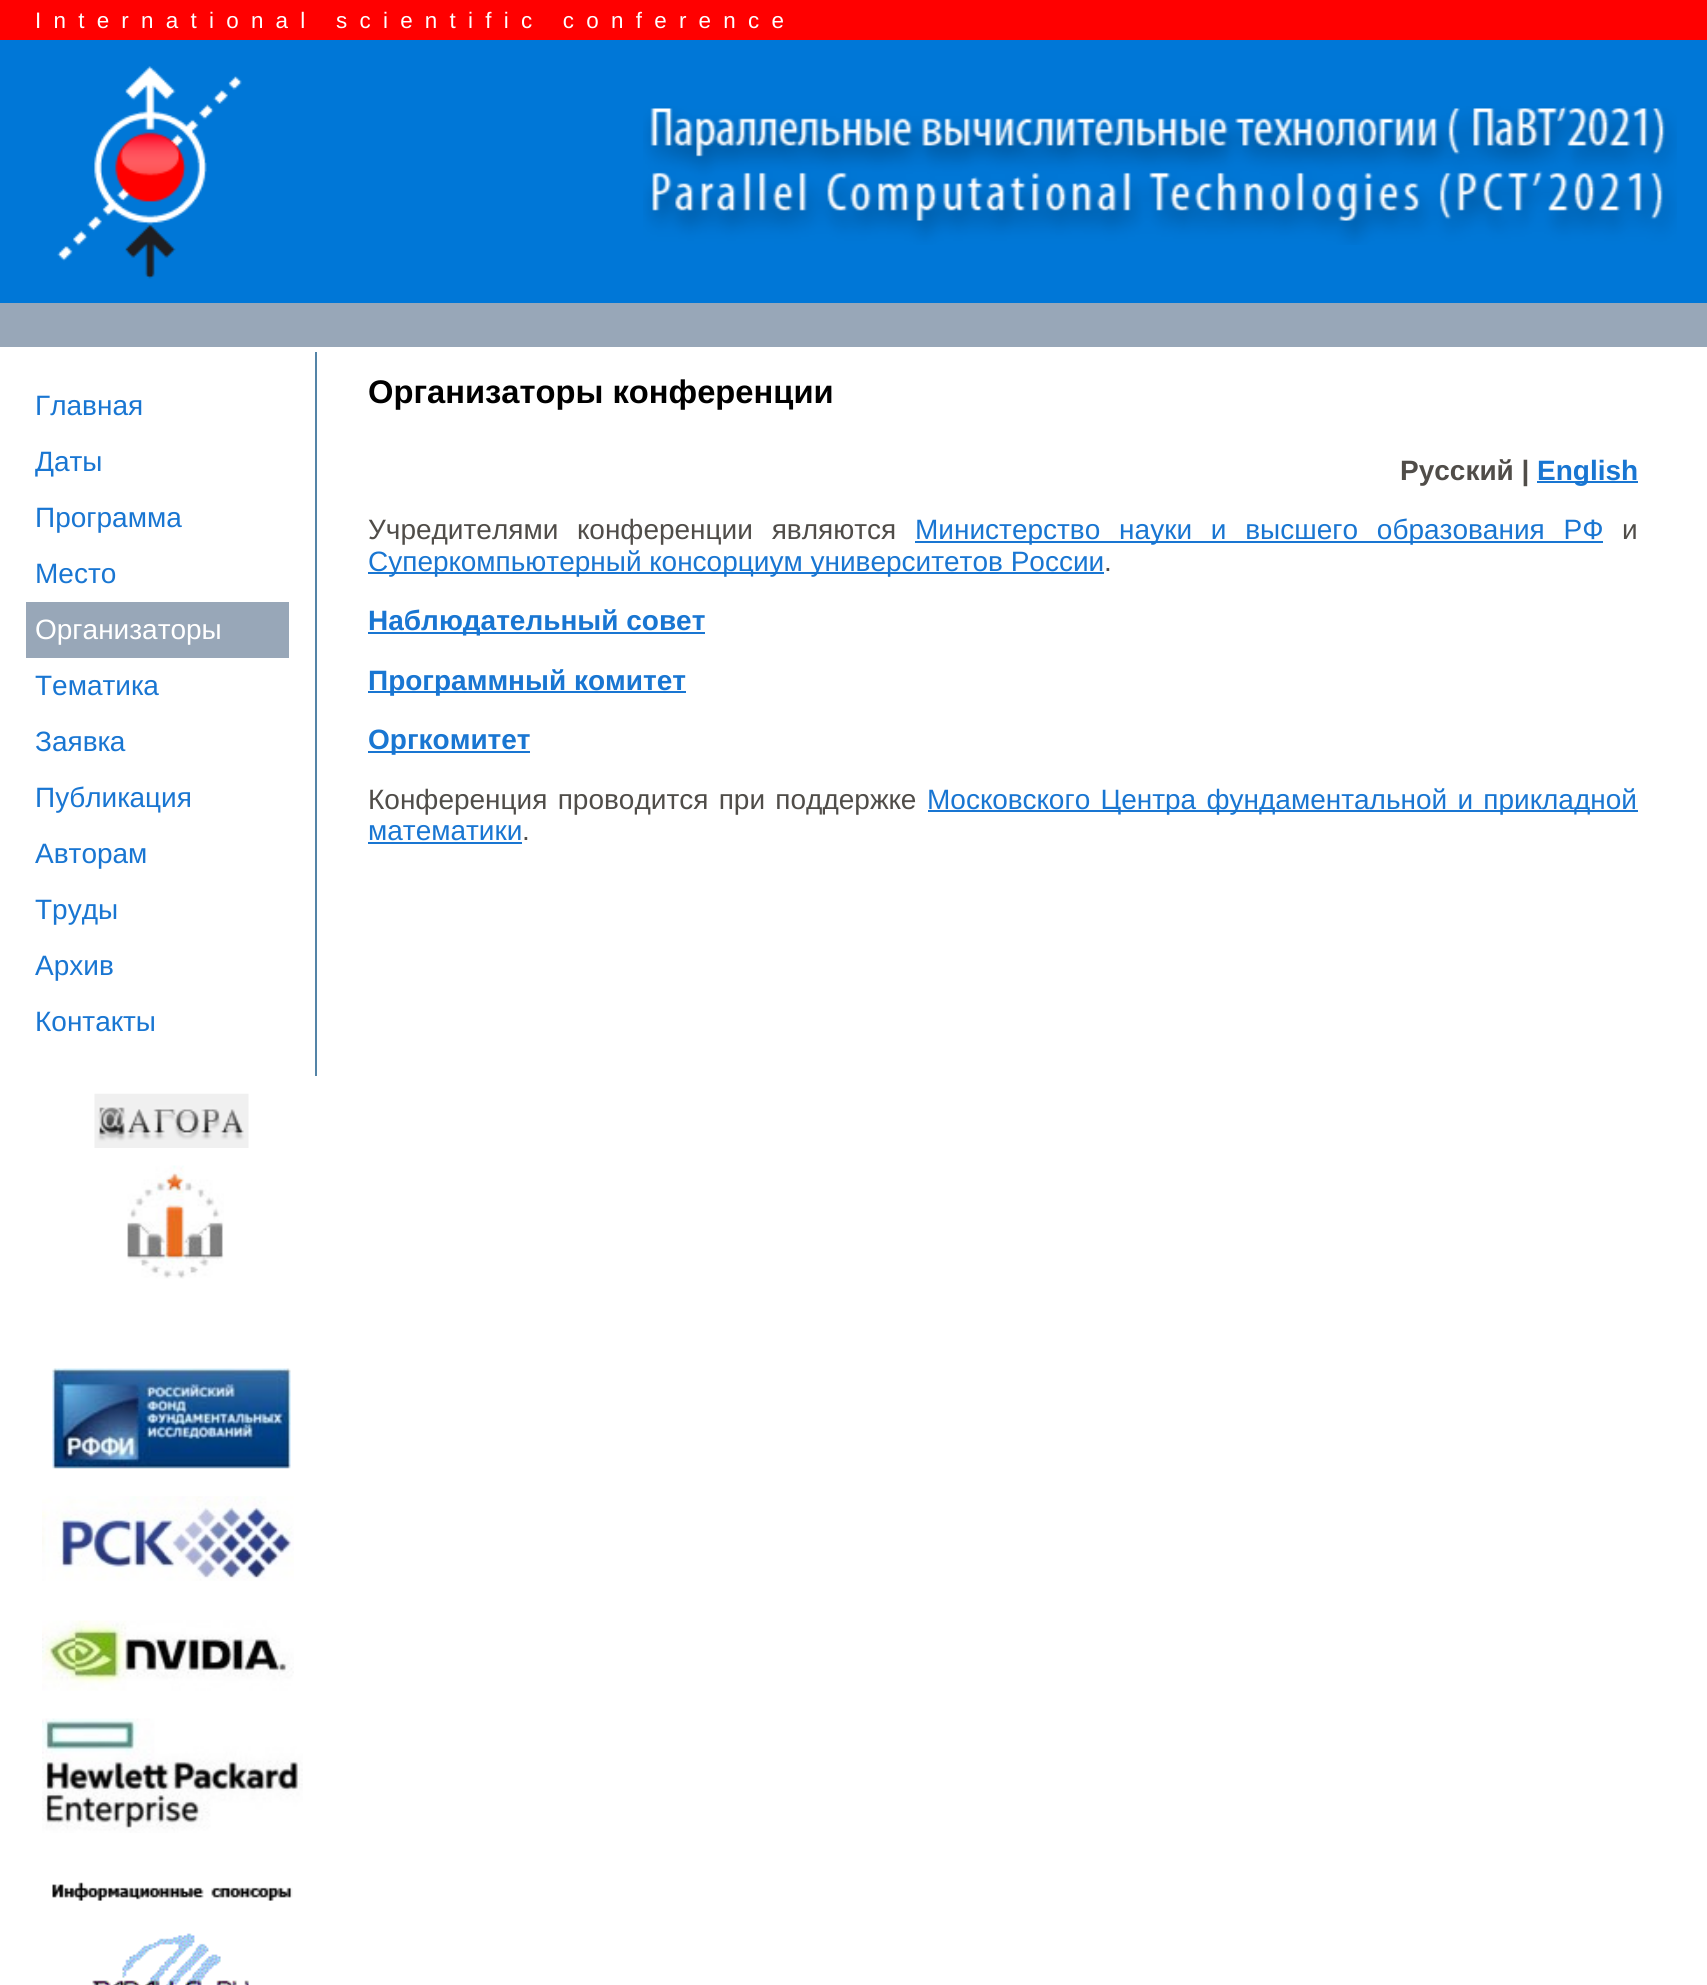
import math
import cairo


def write_spaced(ctx, x, y, s, letter, word):
	ctx.move_to(x, y)
	for ch in s:
		ctx.show_text(ch)
		ctx.rel_move_to(letter + word * (ch == ' '), 0)

def paste(ctx, path, x, y, w, h):
	ctx.save()
	ctx.set_source_surface(cairo.ImageSurface.create_from_png(path), x, y)
	ctx.rectangle(x, y, w, h)
	ctx.fill()
	ctx.restore()

def draw(ctx):
	ctx.set_source_rgb(1, 1, 1)
	ctx.paint()
	ctx.set_source_rgb(1, 0, 0)
	ctx.rectangle(0, 0, 1707, 40)
	ctx.fill()
	ctx.select_font_face('Liberation Sans')
	ctx.set_font_size(22.4)
	ctx.set_source_rgb(1, 1, 1)
	write_spaced(ctx, 35, 28, 'International scientific conference', 12.25, 0)
	ctx.set_source_rgb(0, 0.467, 0.843)
	ctx.rectangle(0, 40, 1707, 263)
	ctx.fill()
	paste(ctx, 'media/1.png', 57, 66, 185, 213)
	paste(ctx, 'media/2.png', 643, 106, 1034, 139)
	ctx.set_source_rgb(0.596, 0.655, 0.722)
	ctx.rectangle(0, 303, 1707, 44)
	ctx.fill()
	ctx.set_source_rgb(0.329, 0.518, 0.655)
	ctx.rectangle(315, 352, 2, 724)
	ctx.fill()
	ctx.set_font_size(28)
	ctx.set_source_rgb(0.098, 0.463, 0.824)
	for x, y, s in [
		(35, 415, 'Главная'),
		(35, 471, 'Даты'),
		(35, 527, 'Программа'),
		(35, 583, 'Место'),
	]:
		ctx.move_to(x, y)
		ctx.show_text(s)
	ctx.set_source_rgb(0.596, 0.655, 0.722)
	ctx.rectangle(26, 602, 263, 56)
	ctx.fill()
	ctx.set_source_rgb(1, 1, 1)
	ctx.move_to(35, 639)
	ctx.show_text('Организаторы')
	ctx.set_source_rgb(0.098, 0.463, 0.824)
	for x, y, s in [
		(35, 695, 'Тематика'),
		(35, 751, 'Заявка'),
		(35, 807, 'Публикация'),
		(35, 863, 'Авторам'),
		(35, 919, 'Труды'),
		(35, 975, 'Архив'),
		(35, 1031, 'Контакты'),
	]:
		ctx.move_to(x, y)
		ctx.show_text(s)
	paste(ctx, 'media/3.png', 94, 1093, 155, 55)
	paste(ctx, 'media/4.png', 127, 1165, 97, 114)
	paste(ctx, 'media/5.png', 52, 1368, 239, 101)
	paste(ctx, 'media/6.png', 42, 1496, 252, 85)
	paste(ctx, 'media/7.png', 42, 1620, 252, 71)
	paste(ctx, 'media/8.png', 42, 1718, 261, 115)
	paste(ctx, 'media/9.png', 52, 1882, 241, 103)
	ctx.select_font_face('Liberation Sans', cairo.FONT_SLANT_NORMAL, cairo.FONT_WEIGHT_BOLD)
	ctx.set_font_size(32.7)
	ctx.set_source_rgb(0, 0, 0)
	ctx.move_to(368, 403)
	ctx.show_text('Организаторы конференции')
	ctx.set_font_size(28)
	ctx.set_source_rgb(0.314, 0.302, 0.286)
	ctx.move_to(1400, 480)
	ctx.show_text('Русский |')
	ctx.set_source_rgb(0.098, 0.463, 0.824)
	ctx.rectangle(1537, 481, 101, 2)
	ctx.fill()
	ctx.move_to(1537, 480)
	ctx.show_text('English')
	ctx.select_font_face('Liberation Sans')
	ctx.set_source_rgb(0.314, 0.302, 0.286)
	write_spaced(ctx, 368, 539, 'Учредителями конференции являются', 0, 11)
	ctx.set_source_rgb(0.098, 0.463, 0.824)
	ctx.rectangle(915, 541, 688, 2)
	ctx.fill()
	write_spaced(ctx, 915, 539, 'Министерство науки и высшего образования РФ', 0, 11)
	ctx.set_source_rgb(0.314, 0.302, 0.286)
	ctx.move_to(1622, 539)
	ctx.show_text('и')
	ctx.set_source_rgb(0.098, 0.463, 0.824)
	ctx.rectangle(368, 572, 736, 2)
	ctx.fill()
	ctx.move_to(368, 571)
	ctx.show_text('Суперкомпьютерный консорциум университетов России')
	ctx.set_source_rgb(0.314, 0.302, 0.286)
	ctx.move_to(1104, 571)
	ctx.show_text('.')
	ctx.set_source_rgb(0.098, 0.463, 0.824)
	ctx.rectangle(368, 632, 337, 2)
	ctx.fill()
	ctx.select_font_face('Liberation Sans', cairo.FONT_SLANT_NORMAL, cairo.FONT_WEIGHT_BOLD)
	ctx.move_to(368, 630)
	ctx.show_text('Наблюдательный совет')
	ctx.rectangle(368, 691, 318, 2)
	ctx.fill()
	ctx.move_to(368, 690)
	ctx.show_text('Программный комитет')
	ctx.rectangle(368, 751, 162, 2)
	ctx.fill()
	ctx.move_to(368, 749)
	ctx.show_text('Оргкомитет')
	ctx.select_font_face('Liberation Sans')
	ctx.set_source_rgb(0.314, 0.302, 0.286)
	write_spaced(ctx, 368, 809, 'Конференция проводится при поддержке', 0, 2.5)
	ctx.set_source_rgb(0.098, 0.463, 0.824)
	ctx.rectangle(928, 810, 710, 2)
	ctx.fill()
	write_spaced(ctx, 927, 809, 'Московского Центра фундаментальной и прикладной', 0, 2.5)
	ctx.move_to(368, 840)
	ctx.show_text('математики')
	ctx.rectangle(368, 842, 154, 2)
	ctx.fill()
	ctx.set_source_rgb(0.314, 0.302, 0.286)
	ctx.move_to(522, 840)
	ctx.show_text('.')


surface = cairo.ImageSurface(cairo.FORMAT_RGB24, 1707, 1985)
ctx = cairo.Context(surface)
options = cairo.FontOptions()
options.set_hint_metrics(cairo.HINT_METRICS_OFF)
options.set_hint_style(cairo.HINT_STYLE_NONE)
ctx.set_font_options(options)
ctx.set_miter_limit(4)
draw(ctx)
surface.write_to_png('image.png')
